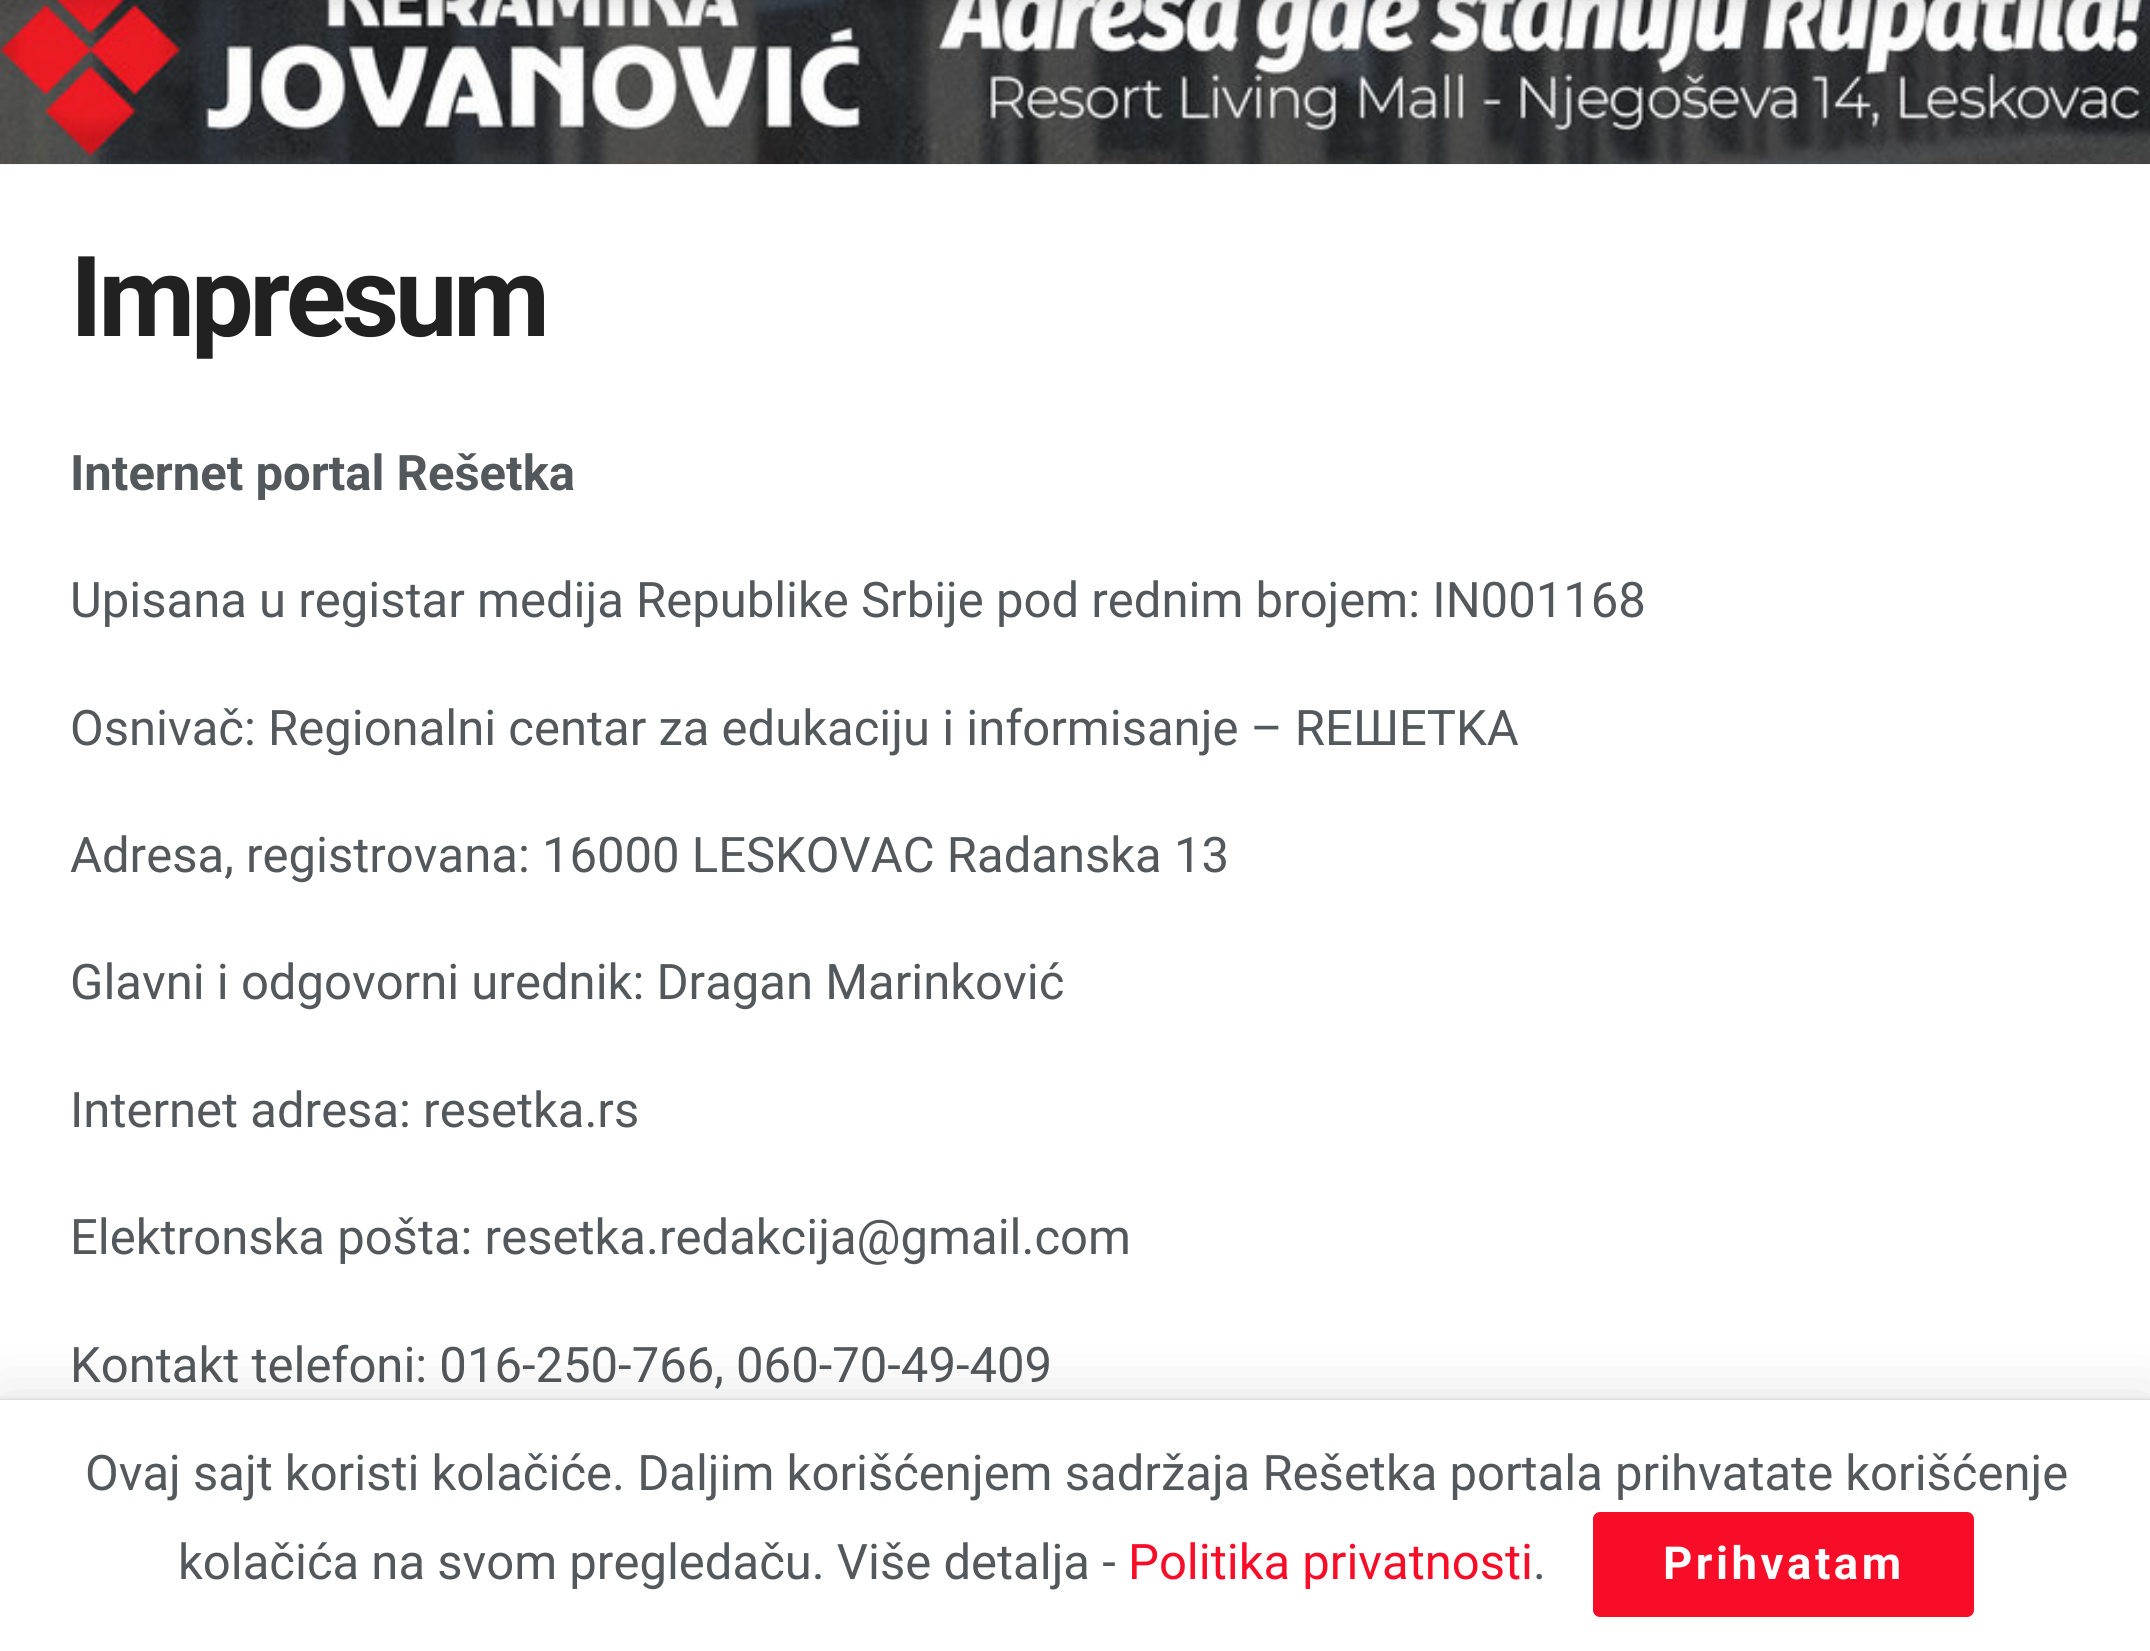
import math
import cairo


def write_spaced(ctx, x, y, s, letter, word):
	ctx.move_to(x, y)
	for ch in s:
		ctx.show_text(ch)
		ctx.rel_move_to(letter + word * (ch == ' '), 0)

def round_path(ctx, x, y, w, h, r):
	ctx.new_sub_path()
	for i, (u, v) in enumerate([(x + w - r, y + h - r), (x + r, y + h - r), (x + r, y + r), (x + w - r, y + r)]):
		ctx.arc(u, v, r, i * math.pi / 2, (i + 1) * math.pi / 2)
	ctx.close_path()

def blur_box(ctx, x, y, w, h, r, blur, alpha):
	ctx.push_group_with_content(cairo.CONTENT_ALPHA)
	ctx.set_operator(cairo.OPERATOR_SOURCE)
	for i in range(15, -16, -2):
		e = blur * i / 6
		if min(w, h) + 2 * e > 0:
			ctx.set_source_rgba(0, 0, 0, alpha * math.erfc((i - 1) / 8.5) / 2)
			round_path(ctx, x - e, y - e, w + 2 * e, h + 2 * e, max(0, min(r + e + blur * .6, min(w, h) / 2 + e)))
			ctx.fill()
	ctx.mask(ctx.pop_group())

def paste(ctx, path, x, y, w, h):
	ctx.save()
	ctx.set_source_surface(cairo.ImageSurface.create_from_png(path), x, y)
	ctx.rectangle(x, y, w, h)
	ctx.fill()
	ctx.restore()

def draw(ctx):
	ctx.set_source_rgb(1, 1, 1)
	ctx.paint()
	ctx.set_source_rgb(0.961, 0.961, 0.961)
	ctx.rectangle(0, 164, 2150, 1)
	ctx.fill()
	paste(ctx, 'media/1.png', 0, 0, 2150, 164)
	ctx.set_source_rgb(0, 0, 0)
	blur_box(ctx, 0, -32, 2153, 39, 0, 10.5, 0.1)
	ctx.select_font_face('Roboto', cairo.FONT_SLANT_NORMAL, cairo.FONT_WEIGHT_BOLD)
	ctx.set_font_size(112)
	ctx.set_source_rgb(0.129, 0.129, 0.129)
	write_spaced(ctx, 70, 336, 'Impresum', -4.5, 0)
	ctx.set_font_size(49)
	ctx.set_source_rgb(0.325, 0.345, 0.361)
	ctx.move_to(70, 490)
	ctx.show_text('Internet portal Rešetka')
	ctx.select_font_face('Roboto')
	for x, y, s in [
		(70, 617, 'Upisana u registar medija Republike Srbije pod rednim brojem: IN001168'),
		(70, 745, 'Osnivač: Regionalni centar za edukaciju i informisanje – REШETKA'),
		(70, 872, 'Adresa, registrovana: 16000 LESKOVAC Radanska 13'),
		(70, 999, 'Glavni i odgovorni urednik: Dragan Marinković'),
		(70, 1127, 'Internet adresa: resetka.rs'),
		(70, 1254, 'Elektronska pošta: resetka.redakcija@gmail.com'),
		(70, 1382, 'Kontakt telefoni: 016-250-766, 060-70-49-409'),
	]:
		ctx.move_to(x, y)
		ctx.show_text(s)
	ctx.set_source_rgb(0, 0, 0)
	blur_box(ctx, 0, 1407, 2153, 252, 0, 35, 0.15)
	blur_box(ctx, 0, 1400, 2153, 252, 0, 2, 0.2)
	ctx.set_source_rgb(1, 1, 1)
	ctx.rectangle(0, 1400, 2150, 251)
	ctx.fill()
	ctx.set_source_rgb(0.325, 0.345, 0.361)
	ctx.move_to(85, 1490)
	ctx.show_text('Ovaj sajt koristi kolačiće. Daljim korišćenjem sadržaja Rešetka portala prihvatate korišćenje')
	ctx.move_to(178, 1579)
	ctx.show_text('kolačića na svom pregledaču. Više detalja -')
	ctx.set_source_rgb(0.969, 0.051, 0.157)
	ctx.move_to(1128, 1579)
	ctx.show_text('Politika privatnosti')
	ctx.set_source_rgb(0.325, 0.345, 0.361)
	ctx.move_to(1533, 1579)
	ctx.show_text('.')
	ctx.set_source_rgb(0.969, 0.051, 0.157)
	round_path(ctx, 1593, 1512, 381, 105, 7)
	ctx.fill()
	ctx.select_font_face('Roboto', cairo.FONT_SLANT_NORMAL, cairo.FONT_WEIGHT_BOLD)
	ctx.set_font_size(45.5)
	ctx.set_source_rgb(1, 1, 1)
	write_spaced(ctx, 1663, 1579, 'Prihvatam', 3.5, 0)


surface = cairo.ImageSurface(cairo.FORMAT_RGB24, 2150, 1651)
ctx = cairo.Context(surface)
options = cairo.FontOptions()
options.set_hint_metrics(cairo.HINT_METRICS_OFF)
options.set_hint_style(cairo.HINT_STYLE_NONE)
ctx.set_font_options(options)
ctx.set_miter_limit(4)
draw(ctx)
surface.write_to_png('image.png')
